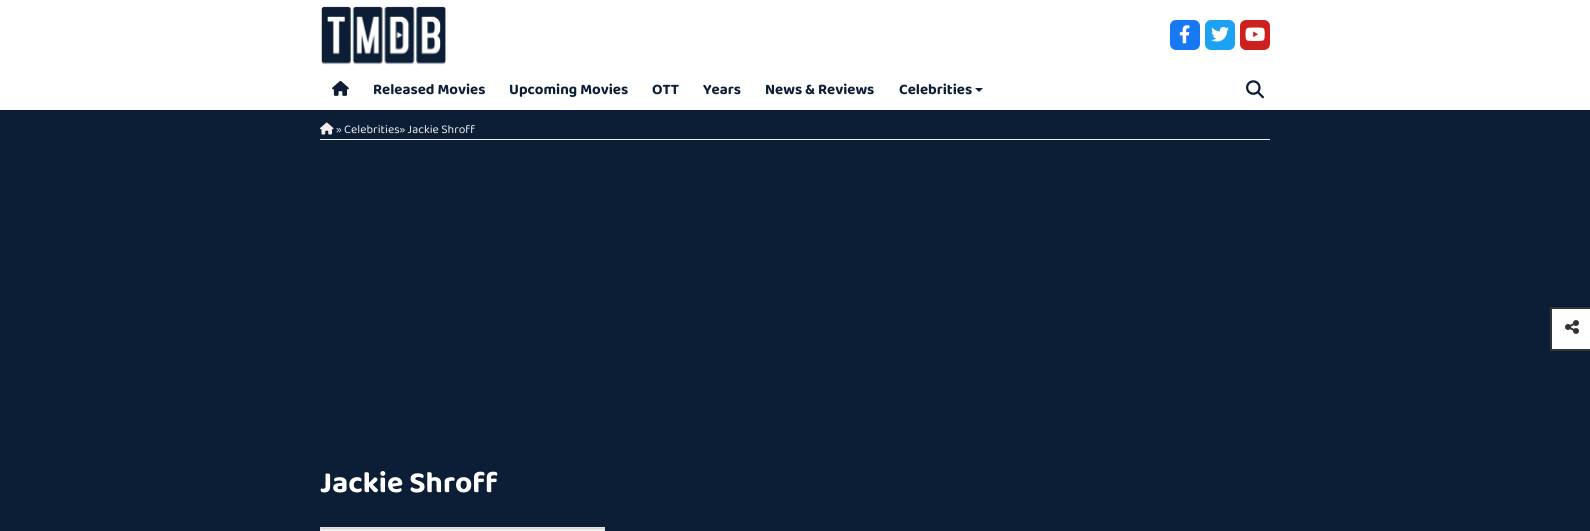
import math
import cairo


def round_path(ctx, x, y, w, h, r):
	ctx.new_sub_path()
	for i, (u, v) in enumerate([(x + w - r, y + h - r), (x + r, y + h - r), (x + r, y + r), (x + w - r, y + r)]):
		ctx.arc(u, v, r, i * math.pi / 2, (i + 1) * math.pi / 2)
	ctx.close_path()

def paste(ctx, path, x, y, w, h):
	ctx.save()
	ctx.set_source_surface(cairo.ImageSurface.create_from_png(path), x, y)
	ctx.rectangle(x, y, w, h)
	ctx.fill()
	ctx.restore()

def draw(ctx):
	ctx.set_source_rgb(1, 1, 1)
	ctx.paint()
	paste(ctx, 'media/1.png', 321, 6, 126, 59)
	ctx.set_source_rgb(0.094, 0.467, 0.949)
	round_path(ctx, 1170, 20, 30, 30, 6)
	ctx.fill()
	paste(ctx, 'media/2.png', 1179, 25, 11, 19)
	ctx.set_source_rgb(0.114, 0.631, 0.949)
	round_path(ctx, 1205, 20, 30, 30, 6)
	ctx.fill()
	paste(ctx, 'media/3.png', 1211, 27, 18, 15)
	ctx.set_source_rgb(0.804, 0.125, 0.122)
	round_path(ctx, 1240, 20, 30, 30, 6)
	ctx.fill()
	paste(ctx, 'media/4.png', 1245, 27, 20, 14)
	paste(ctx, 'media/5.png', 332, 80, 17, 16)
	ctx.select_font_face('Baloo Thambi 2', cairo.FONT_SLANT_NORMAL, cairo.FONT_WEIGHT_BOLD)
	ctx.set_font_size(15)
	ctx.set_source_rgb(0.047, 0.118, 0.208)
	for x, y, s in [
		(373, 94, 'Released Movies'),
		(509, 94, 'Upcoming Movies'),
		(652, 94, 'OTT'),
		(703, 94, 'Years'),
		(765, 94, 'News & Reviews'),
		(899, 94, 'Celebrities'),
	]:
		ctx.move_to(x, y)
		ctx.show_text(s)
	ctx.new_path()
	ctx.move_to(975, 88)
	ctx.line_to(983, 88)
	ctx.line_to(979, 92)
	ctx.close_path()
	ctx.fill()
	paste(ctx, 'media/6.png', 1246, 80, 18, 19)
	ctx.rectangle(0, 110, 1590, 421)
	ctx.fill()
	ctx.set_source_rgb(0.933, 0.933, 0.933)
	ctx.rectangle(320, 139, 950, 1)
	ctx.fill()
	paste(ctx, 'media/7.png', 320, 122, 14, 13)
	ctx.select_font_face('Baloo Thambi 2')
	ctx.set_font_size(12)
	ctx.move_to(336, 133)
	ctx.show_text('» Celebrities» Jackie Shroff')
	ctx.select_font_face('Baloo Thambi 2', cairo.FONT_SLANT_NORMAL, cairo.FONT_WEIGHT_BOLD)
	ctx.set_font_size(30)
	ctx.set_source_rgb(1, 1, 1)
	ctx.move_to(320, 492)
	ctx.show_text('Jackie Shroff')
	paste(ctx, 'media/8.png', 321, 528, 283, 3)
	ctx.rectangle(320.5, 527.5, 284, 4)
	ctx.set_source_rgb(0.886, 0.886, 0.886)
	ctx.set_line_width(1)
	ctx.stroke()
	ctx.set_source_rgb(0.2, 0.2, 0.2)
	ctx.rectangle(1550, 307, 40, 2)
	ctx.rectangle(1550, 349, 40, 2)
	ctx.rectangle(1550, 307, 2, 44)
	ctx.fill()
	ctx.set_source_rgb(1, 1, 1)
	ctx.rectangle(1552, 309, 38, 40)
	ctx.fill()
	paste(ctx, 'media/9.png', 1565, 320, 14, 14)


surface = cairo.ImageSurface(cairo.FORMAT_RGB24, 1590, 531)
ctx = cairo.Context(surface)
options = cairo.FontOptions()
options.set_hint_metrics(cairo.HINT_METRICS_OFF)
options.set_hint_style(cairo.HINT_STYLE_NONE)
ctx.set_font_options(options)
ctx.set_miter_limit(4)
draw(ctx)
surface.write_to_png('image.png')
